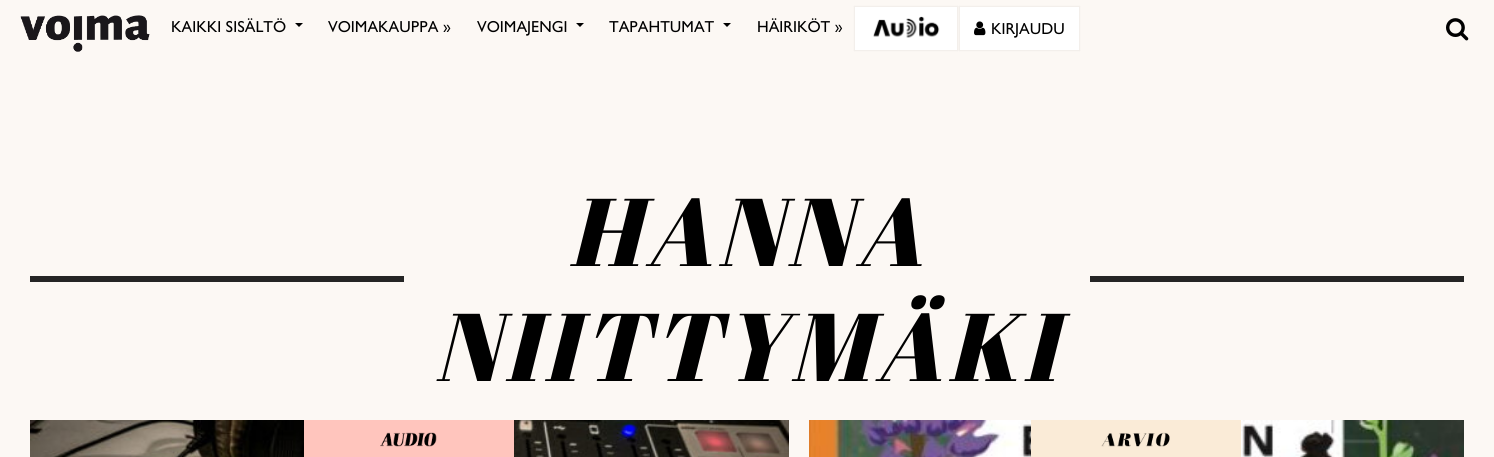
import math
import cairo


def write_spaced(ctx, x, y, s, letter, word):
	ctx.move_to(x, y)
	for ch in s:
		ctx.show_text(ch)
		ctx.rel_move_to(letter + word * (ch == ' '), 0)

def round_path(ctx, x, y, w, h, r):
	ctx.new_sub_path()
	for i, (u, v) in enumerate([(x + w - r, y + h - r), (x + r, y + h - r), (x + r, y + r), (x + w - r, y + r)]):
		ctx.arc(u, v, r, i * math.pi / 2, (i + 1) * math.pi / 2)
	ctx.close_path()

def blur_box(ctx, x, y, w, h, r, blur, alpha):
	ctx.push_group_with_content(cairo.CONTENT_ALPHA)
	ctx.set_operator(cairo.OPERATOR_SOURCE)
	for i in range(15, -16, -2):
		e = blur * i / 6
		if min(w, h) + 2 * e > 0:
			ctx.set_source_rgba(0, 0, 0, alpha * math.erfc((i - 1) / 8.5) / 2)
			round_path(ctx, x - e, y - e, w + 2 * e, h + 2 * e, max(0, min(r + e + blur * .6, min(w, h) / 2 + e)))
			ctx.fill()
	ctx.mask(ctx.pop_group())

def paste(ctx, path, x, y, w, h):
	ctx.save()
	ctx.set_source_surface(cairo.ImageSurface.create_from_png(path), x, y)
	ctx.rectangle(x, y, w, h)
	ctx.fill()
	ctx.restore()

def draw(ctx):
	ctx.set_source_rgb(0.988, 0.969, 0.957)
	ctx.paint()
	paste(ctx, 'media/1.png', 20, 15, 130, 37)
	ctx.select_font_face('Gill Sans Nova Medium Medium')
	ctx.set_font_size(16)
	ctx.set_source_rgb(0, 0, 0)
	ctx.move_to(171, 32)
	ctx.show_text('KAIKKI SISÄLTÖ')
	ctx.new_path()
	ctx.move_to(295, 23)
	ctx.line_to(303, 23)
	ctx.line_to(299, 27)
	ctx.close_path()
	ctx.fill()
	ctx.move_to(328, 32)
	ctx.show_text('VOIMAKAUPPA »')
	ctx.move_to(477, 32)
	ctx.show_text('VOIMAJENGI')
	ctx.new_path()
	ctx.move_to(576, 23)
	ctx.line_to(584, 23)
	ctx.line_to(580, 27)
	ctx.close_path()
	ctx.fill()
	ctx.move_to(609, 32)
	ctx.show_text('TAPAHTUMAT')
	ctx.new_path()
	ctx.move_to(723, 23)
	ctx.line_to(731, 23)
	ctx.line_to(727, 27)
	ctx.close_path()
	ctx.fill()
	ctx.move_to(757, 32)
	ctx.show_text('HÄIRIKÖT »')
	ctx.set_source_rgb(0, 0, 0)
	blur_box(ctx, 854, 6, 104, 45, 0, 0.5, 0.04)
	ctx.set_source_rgb(1, 1, 1)
	ctx.rectangle(855, 7, 102, 43)
	ctx.fill()
	paste(ctx, 'media/2.png', 873, 16, 67, 22)
	ctx.set_source_rgb(0, 0, 0)
	blur_box(ctx, 959, 6, 121, 45, 0, 0.5, 0.04)
	ctx.set_source_rgb(1, 1, 1)
	ctx.rectangle(960, 7, 119, 43)
	ctx.fill()
	paste(ctx, 'media/3.png', 974, 21, 12, 15)
	ctx.set_source_rgb(0, 0, 0)
	ctx.move_to(991, 34)
	ctx.show_text('KIRJAUDU')
	paste(ctx, 'media/4.png', 1446, 18, 23, 23)
	ctx.set_source_rgb(0.145, 0.145, 0.145)
	ctx.rectangle(30, 276, 374, 6)
	ctx.fill()
	ctx.select_font_face('Abril Fatface', cairo.FONT_SLANT_ITALIC)
	ctx.set_font_size(96)
	ctx.set_source_rgb(0, 0, 0)
	write_spaced(ctx, 568, 266, 'HANNA', 5, 0)
	write_spaced(ctx, 434, 381, 'NIITTYMÄKI', 5, 0)
	ctx.set_source_rgb(0.145, 0.145, 0.145)
	ctx.rectangle(1090, 276, 374, 6)
	ctx.fill()
	paste(ctx, 'media/5.png', 30, 420, 759, 37)
	paste(ctx, 'media/6.png', 304, 420, 210, 37)
	paste(ctx, 'media/7.png', 809, 420, 655, 37)
	paste(ctx, 'media/8.png', 1031, 420, 210, 37)


surface = cairo.ImageSurface(cairo.FORMAT_RGB24, 1494, 457)
ctx = cairo.Context(surface)
options = cairo.FontOptions()
options.set_hint_metrics(cairo.HINT_METRICS_OFF)
options.set_hint_style(cairo.HINT_STYLE_NONE)
ctx.set_font_options(options)
ctx.set_miter_limit(4)
draw(ctx)
surface.write_to_png('image.png')
